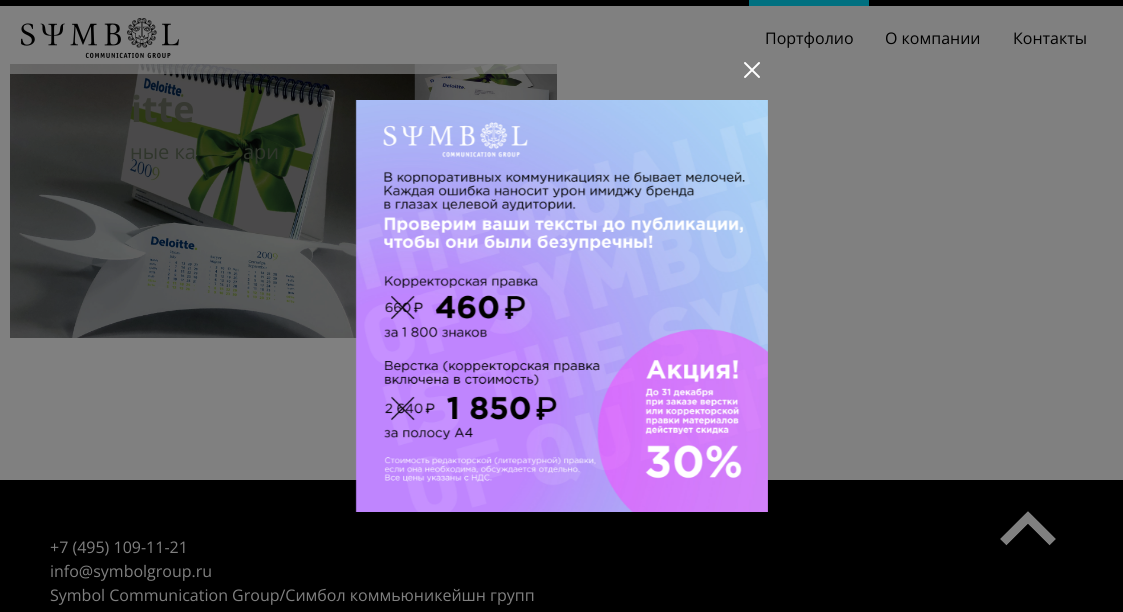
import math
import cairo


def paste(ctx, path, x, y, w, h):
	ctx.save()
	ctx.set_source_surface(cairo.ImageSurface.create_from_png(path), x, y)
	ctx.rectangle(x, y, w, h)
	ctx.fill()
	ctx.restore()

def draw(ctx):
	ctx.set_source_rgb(0.502, 0.502, 0.502)
	ctx.paint()
	paste(ctx, 'media/3.png', 10, 64, 547, 274)
	ctx.set_source_rgba(0.502, 0.502, 0.502, 0.7)
	ctx.rectangle(10, 64, 547, 10)
	ctx.fill()
	ctx.set_source_rgb(0, 0, 0)
	ctx.rectangle(0, 0, 1123, 6)
	ctx.fill()
	paste(ctx, 'media/2.png', 21, 23, 158, 35)
	paste(ctx, 'media/1.png', 127, 18, 30, 30)
	ctx.set_source_rgb(0, 0.439, 0.502)
	ctx.rectangle(749, 0, 120, 6)
	ctx.fill()
	ctx.select_font_face('Open Sans')
	ctx.set_font_size(16)
	ctx.set_source_rgb(0, 0, 0)
	for x, y, s in [
		(765, 44, 'Портфолио'),
		(885, 44, 'О компании'),
		(1013, 44, 'Контакты'),
	]:
		ctx.move_to(x, y)
		ctx.show_text(s)
	ctx.select_font_face('Open Sans', cairo.FONT_SLANT_NORMAL, cairo.FONT_WEIGHT_BOLD)
	ctx.set_font_size(36)
	ctx.set_source_rgb(0.212, 0.22, 0.192)
	ctx.move_to(131, 122)
	ctx.show_text('itte')
	ctx.select_font_face('Open Sans')
	ctx.set_font_size(20)
	ctx.set_source_rgb(0.188, 0.212, 0.173)
	ctx.move_to(130, 159)
	ctx.show_text('ные ка')
	ctx.move_to(243, 159)
	ctx.show_text('ари')
	paste(ctx, 'media/4.png', 744, 62, 16, 16)
	ctx.set_source_rgb(0, 0, 0)
	ctx.rectangle(0, 480, 1123, 132)
	ctx.fill()
	paste(ctx, 'media/5.png', 355, 100, 413, 412)
	paste(ctx, 'media/6.png', 1000, 511, 56, 35)
	ctx.set_font_size(16)
	ctx.set_source_rgb(0.502, 0.502, 0.502)
	for x, y, s in [
		(50, 553, '+7 (495) 109-11-21'),
		(50, 577, 'info@symbolgroup.ru'),
		(50, 601, 'Symbol Communication Group/Симбол коммьюникейшн групп'),
	]:
		ctx.move_to(x, y)
		ctx.show_text(s)


surface = cairo.ImageSurface(cairo.FORMAT_RGB24, 1123, 612)
ctx = cairo.Context(surface)
options = cairo.FontOptions()
options.set_hint_metrics(cairo.HINT_METRICS_OFF)
options.set_hint_style(cairo.HINT_STYLE_NONE)
ctx.set_font_options(options)
ctx.set_miter_limit(4)
draw(ctx)
surface.write_to_png('image.png')
